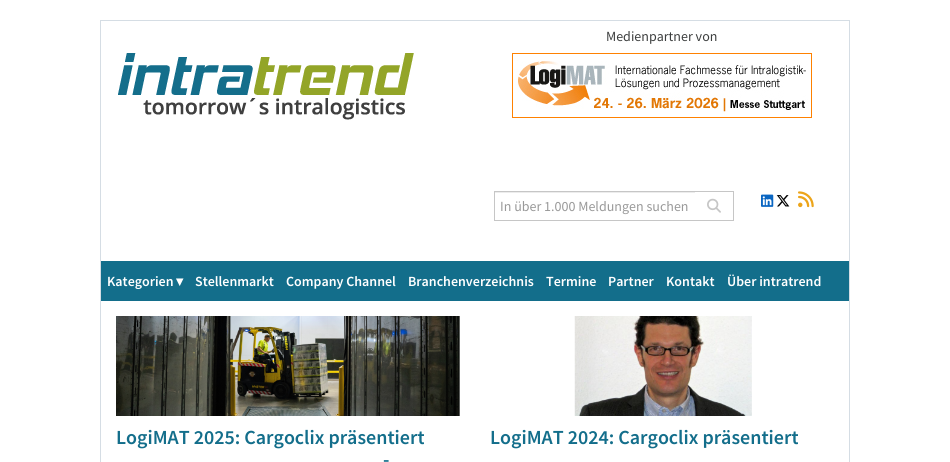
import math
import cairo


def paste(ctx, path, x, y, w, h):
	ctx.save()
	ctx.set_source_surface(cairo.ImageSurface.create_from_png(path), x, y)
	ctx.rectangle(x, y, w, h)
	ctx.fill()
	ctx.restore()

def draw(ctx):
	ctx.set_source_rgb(1, 1, 1)
	ctx.paint()
	ctx.rectangle(100.5, 20.5, 749, 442)
	ctx.set_source_rgb(0.835, 0.867, 0.894)
	ctx.set_line_width(1)
	ctx.stroke()
	ctx.select_font_face('Source Sans Pro')
	ctx.set_font_size(14)
	ctx.set_source_rgb(0.235, 0.243, 0.243)
	ctx.move_to(606, 41)
	ctx.show_text('Medienpartner von')
	paste(ctx, 'media/1.png', 512, 53, 300, 65)
	paste(ctx, 'media/2.png', 118, 53, 296, 67)
	ctx.set_source_rgb(0.925, 0.925, 0.925)
	ctx.rectangle(495, 192, 200, 1)
	ctx.fill()
	ctx.rectangle(494.5, 191.5, 201, 29)
	ctx.set_source_rgb(0.776, 0.776, 0.776)
	ctx.stroke()
	ctx.set_source_rgb(0.6, 0.6, 0.6)
	ctx.move_to(500, 211)
	ctx.show_text('In über 1.000 Meldungen suchen')
	ctx.set_source_rgb(1, 1, 1)
	ctx.rectangle(695, 192, 1, 28)
	ctx.fill()
	ctx.set_source_rgb(0.776, 0.776, 0.776)
	ctx.rectangle(695, 191, 39, 1)
	ctx.rectangle(733, 191, 1, 30)
	ctx.rectangle(695, 220, 39, 1)
	ctx.fill()
	paste(ctx, 'media/3.png', 707, 198, 14, 15)
	paste(ctx, 'media/4.png', 761, 194, 13, 13)
	paste(ctx, 'media/5.png', 776, 195, 14, 12)
	paste(ctx, 'media/6.png', 798, 191, 16, 17)
	ctx.set_source_rgb(0.078, 0.431, 0.545)
	ctx.rectangle(101, 261, 748, 40)
	ctx.fill()
	ctx.select_font_face('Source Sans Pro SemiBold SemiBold')
	ctx.set_source_rgb(1, 1, 1)
	ctx.move_to(107, 286)
	ctx.show_text('Kategorien')
	ctx.select_font_face('DejaVu Sans', cairo.FONT_SLANT_NORMAL, cairo.FONT_WEIGHT_BOLD)
	ctx.move_to(176, 286)
	ctx.show_text('▾')
	ctx.select_font_face('Source Sans Pro SemiBold SemiBold')
	for x, y, s in [
		(195, 286, 'Stellenmarkt'),
		(286, 286, 'Company Channel'),
		(408, 286, 'Branchenverzeichnis'),
		(546, 286, 'Termine'),
		(608, 286, 'Partner'),
		(666, 286, 'Kontakt'),
		(727, 286, 'Über intratrend'),
	]:
		ctx.move_to(x, y)
		ctx.show_text(s)
	paste(ctx, 'media/7.png', 116, 316, 344, 100)
	ctx.set_font_size(20)
	ctx.set_source_rgb(0.078, 0.431, 0.545)
	ctx.move_to(116, 444)
	ctx.show_text('LogiMAT 2025: Cargoclix präsentiert')
	ctx.move_to(383, 466)
	ctx.show_text('-')
	paste(ctx, 'media/8.png', 574, 316, 178, 100)
	ctx.move_to(490, 444)
	ctx.show_text('LogiMAT 2024: Cargoclix präsentiert')


surface = cairo.ImageSurface(cairo.FORMAT_RGB24, 950, 462)
ctx = cairo.Context(surface)
options = cairo.FontOptions()
options.set_hint_metrics(cairo.HINT_METRICS_OFF)
options.set_hint_style(cairo.HINT_STYLE_NONE)
ctx.set_font_options(options)
ctx.set_miter_limit(4)
draw(ctx)
surface.write_to_png('image.png')
